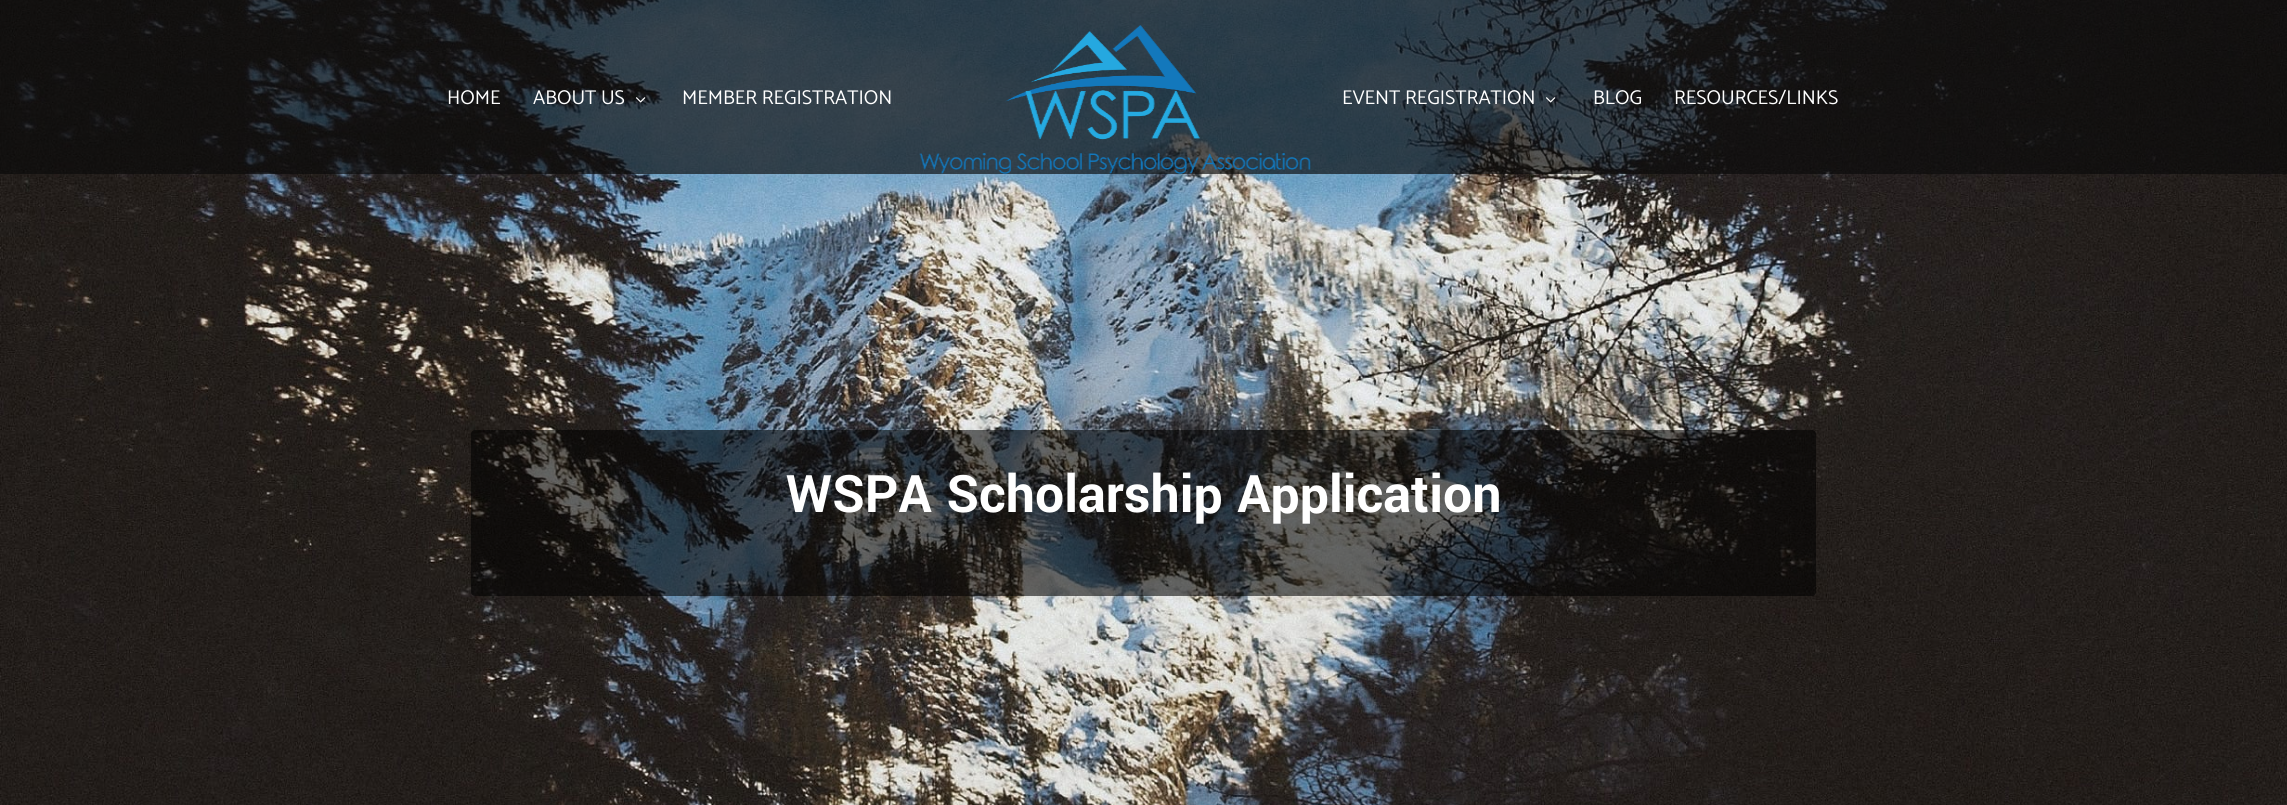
import math
import cairo


def round_path(ctx, x, y, w, h, r):
	ctx.new_sub_path()
	for i, (u, v) in enumerate([(x + w - r, y + h - r), (x + r, y + h - r), (x + r, y + r), (x + w - r, y + r)]):
		ctx.arc(u, v, r, i * math.pi / 2, (i + 1) * math.pi / 2)
	ctx.close_path()

def paste(ctx, path, x, y, w, h):
	ctx.save()
	ctx.set_source_surface(cairo.ImageSurface.create_from_png(path), x, y)
	ctx.rectangle(x, y, w, h)
	ctx.fill()
	ctx.restore()

def draw(ctx):
	ctx.set_source_rgb(1, 1, 1)
	ctx.paint()
	paste(ctx, 'media/4.png', 0, 0, 2287, 805)
	ctx.set_source_rgba(0.039, 0.039, 0.039, 0.66)
	ctx.rectangle(0, 0, 2287, 174)
	ctx.fill()
	ctx.select_font_face('Catamaran')
	ctx.set_font_size(20)
	ctx.set_source_rgb(1, 1, 1)
	ctx.move_to(447, 104)
	ctx.show_text('HOME')
	ctx.move_to(533, 104)
	ctx.show_text('ABOUT US')
	paste(ctx, 'media/1.png', 636, 97, 10, 6)
	ctx.move_to(682, 104)
	ctx.show_text('MEMBER REGISTRATION')
	paste(ctx, 'media/2.png', 919, 25, 392, 149)
	ctx.move_to(1342, 104)
	ctx.show_text('EVENT REGISTRATION')
	paste(ctx, 'media/3.png', 1546, 97, 10, 6)
	ctx.move_to(1593, 104)
	ctx.show_text('BLOG')
	ctx.move_to(1674, 104)
	ctx.show_text('RESOURCES/LINKS')
	ctx.set_source_rgba(0, 0, 0, 0.57)
	round_path(ctx, 471, 430, 1345, 166, 4)
	ctx.fill()
	ctx.select_font_face('Yantramanav', cairo.FONT_SLANT_NORMAL, cairo.FONT_WEIGHT_BOLD)
	ctx.set_font_size(57.5)
	ctx.set_source_rgb(1, 1, 1)
	ctx.move_to(786, 512)
	ctx.show_text('WSPA Scholarship Application')


surface = cairo.ImageSurface(cairo.FORMAT_RGB24, 2287, 805)
ctx = cairo.Context(surface)
options = cairo.FontOptions()
options.set_hint_metrics(cairo.HINT_METRICS_OFF)
options.set_hint_style(cairo.HINT_STYLE_NONE)
ctx.set_font_options(options)
ctx.set_miter_limit(4)
draw(ctx)
surface.write_to_png('image.png')
